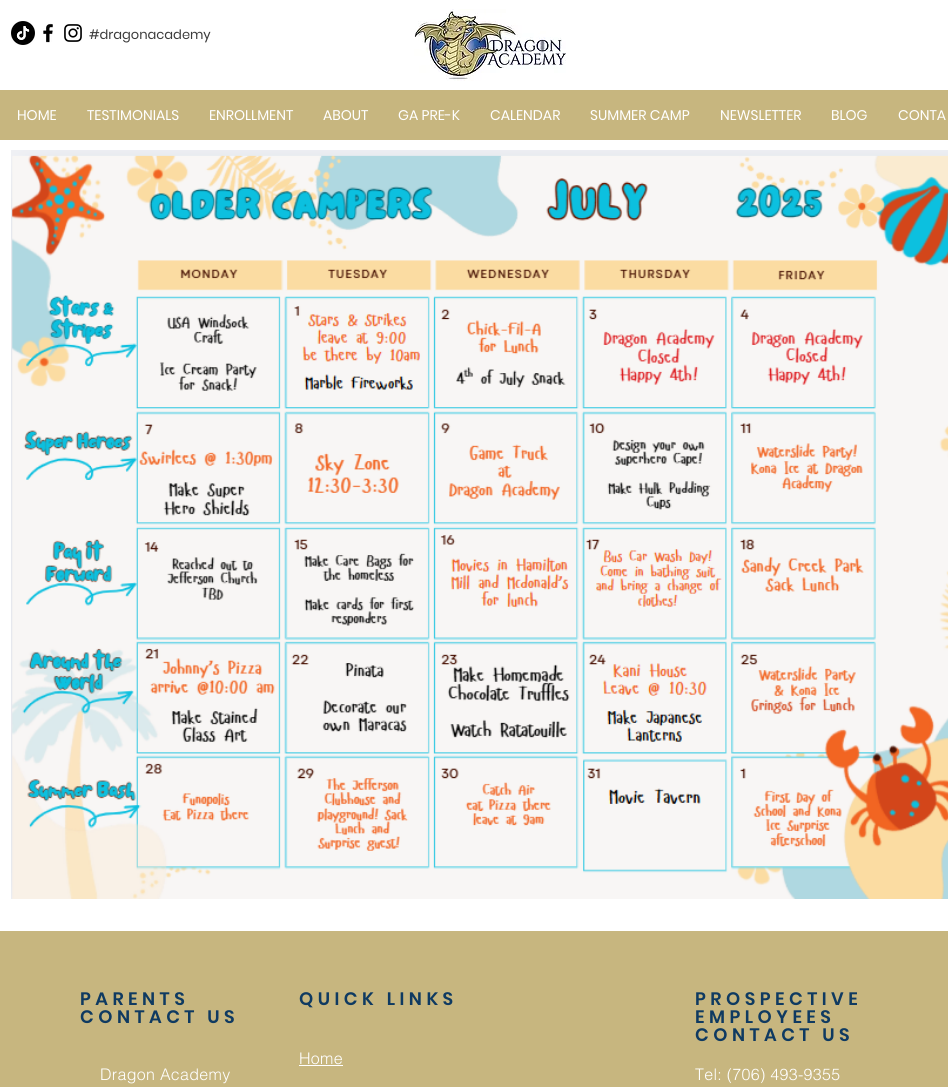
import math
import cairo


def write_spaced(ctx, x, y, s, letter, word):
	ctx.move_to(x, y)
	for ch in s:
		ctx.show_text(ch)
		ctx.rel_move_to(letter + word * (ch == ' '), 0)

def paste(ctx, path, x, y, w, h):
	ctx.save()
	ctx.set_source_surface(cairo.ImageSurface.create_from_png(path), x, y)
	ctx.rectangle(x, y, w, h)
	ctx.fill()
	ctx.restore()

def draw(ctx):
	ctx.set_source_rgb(1, 1, 1)
	ctx.paint()
	paste(ctx, 'media/1.png', 11, 21, 24, 24)
	paste(ctx, 'media/2.png', 43, 23, 10, 20)
	paste(ctx, 'media/3.png', 64, 24, 18, 18)
	ctx.select_font_face('Poppins')
	ctx.set_font_size(13)
	ctx.set_source_rgb(0.231, 0.231, 0.231)
	ctx.move_to(89, 39)
	ctx.show_text('#dragonacademy')
	paste(ctx, 'media/4.png', 414, 9, 152, 72)
	ctx.set_source_rgb(0.78, 0.714, 0.498)
	ctx.rectangle(0, 90, 948, 50)
	ctx.fill()
	ctx.set_font_size(14)
	ctx.set_source_rgb(1, 1, 1)
	for x, y, s in [
		(17, 120, 'HOME'),
		(87, 120, 'TESTIMONIALS'),
		(209, 120, 'ENROLLMENT'),
		(323, 120, 'ABOUT'),
		(398, 120, 'GA PRE-K'),
		(490, 120, 'CALENDAR'),
		(590, 120, 'SUMMER CAMP'),
		(720, 120, 'NEWSLETTER'),
		(831, 120, 'BLOG'),
		(898, 120, 'CONTA'),
	]:
		ctx.move_to(x, y)
		ctx.show_text(s)
	paste(ctx, 'media/5.png', 11, 150, 937, 749)
	ctx.set_source_rgb(0.78, 0.714, 0.498)
	ctx.rectangle(0, 931, 948, 156)
	ctx.fill()
	ctx.select_font_face('Poppins SemiBold')
	ctx.set_font_size(18)
	ctx.set_source_rgb(0.059, 0.227, 0.38)
	write_spaced(ctx, 80, 1005, 'PARENTS', 4.5, 0)
	write_spaced(ctx, 80, 1023, 'CONTACT US', 4.5, 0)
	ctx.select_font_face('helvetica Light')
	ctx.set_font_size(16)
	ctx.set_source_rgb(1, 1, 1)
	write_spaced(ctx, 100, 1080, 'Dragon Academy', 0.3, 0)
	ctx.select_font_face('Poppins SemiBold')
	ctx.set_font_size(18)
	ctx.set_source_rgb(0.059, 0.227, 0.38)
	write_spaced(ctx, 299, 1005, 'QUICK LINKS', 4.5, 0)
	ctx.select_font_face('helvetica Light')
	ctx.set_font_size(16)
	ctx.set_source_rgb(1, 1, 1)
	write_spaced(ctx, 299, 1064, 'Home', 0.3, 0)
	ctx.rectangle(299, 1065, 44, 1)
	ctx.fill()
	ctx.select_font_face('Poppins SemiBold')
	ctx.set_font_size(18)
	ctx.set_source_rgb(0.059, 0.227, 0.38)
	for x, y, s in [
		(695, 1005, 'PROSPECTIVE'),
		(695, 1023, 'EMPLOYEES'),
		(695, 1041, 'CONTACT US'),
	]:
		write_spaced(ctx, x, y, s, 4.5, 0)
	ctx.select_font_face('helvetica Light')
	ctx.set_font_size(16)
	ctx.set_source_rgb(1, 1, 1)
	write_spaced(ctx, 695, 1080, 'Tel: (706) 493-9355', 0.3, 0)


surface = cairo.ImageSurface(cairo.FORMAT_RGB24, 948, 1087)
ctx = cairo.Context(surface)
options = cairo.FontOptions()
options.set_hint_metrics(cairo.HINT_METRICS_OFF)
options.set_hint_style(cairo.HINT_STYLE_NONE)
ctx.set_font_options(options)
ctx.set_miter_limit(4)
draw(ctx)
surface.write_to_png('image.png')
